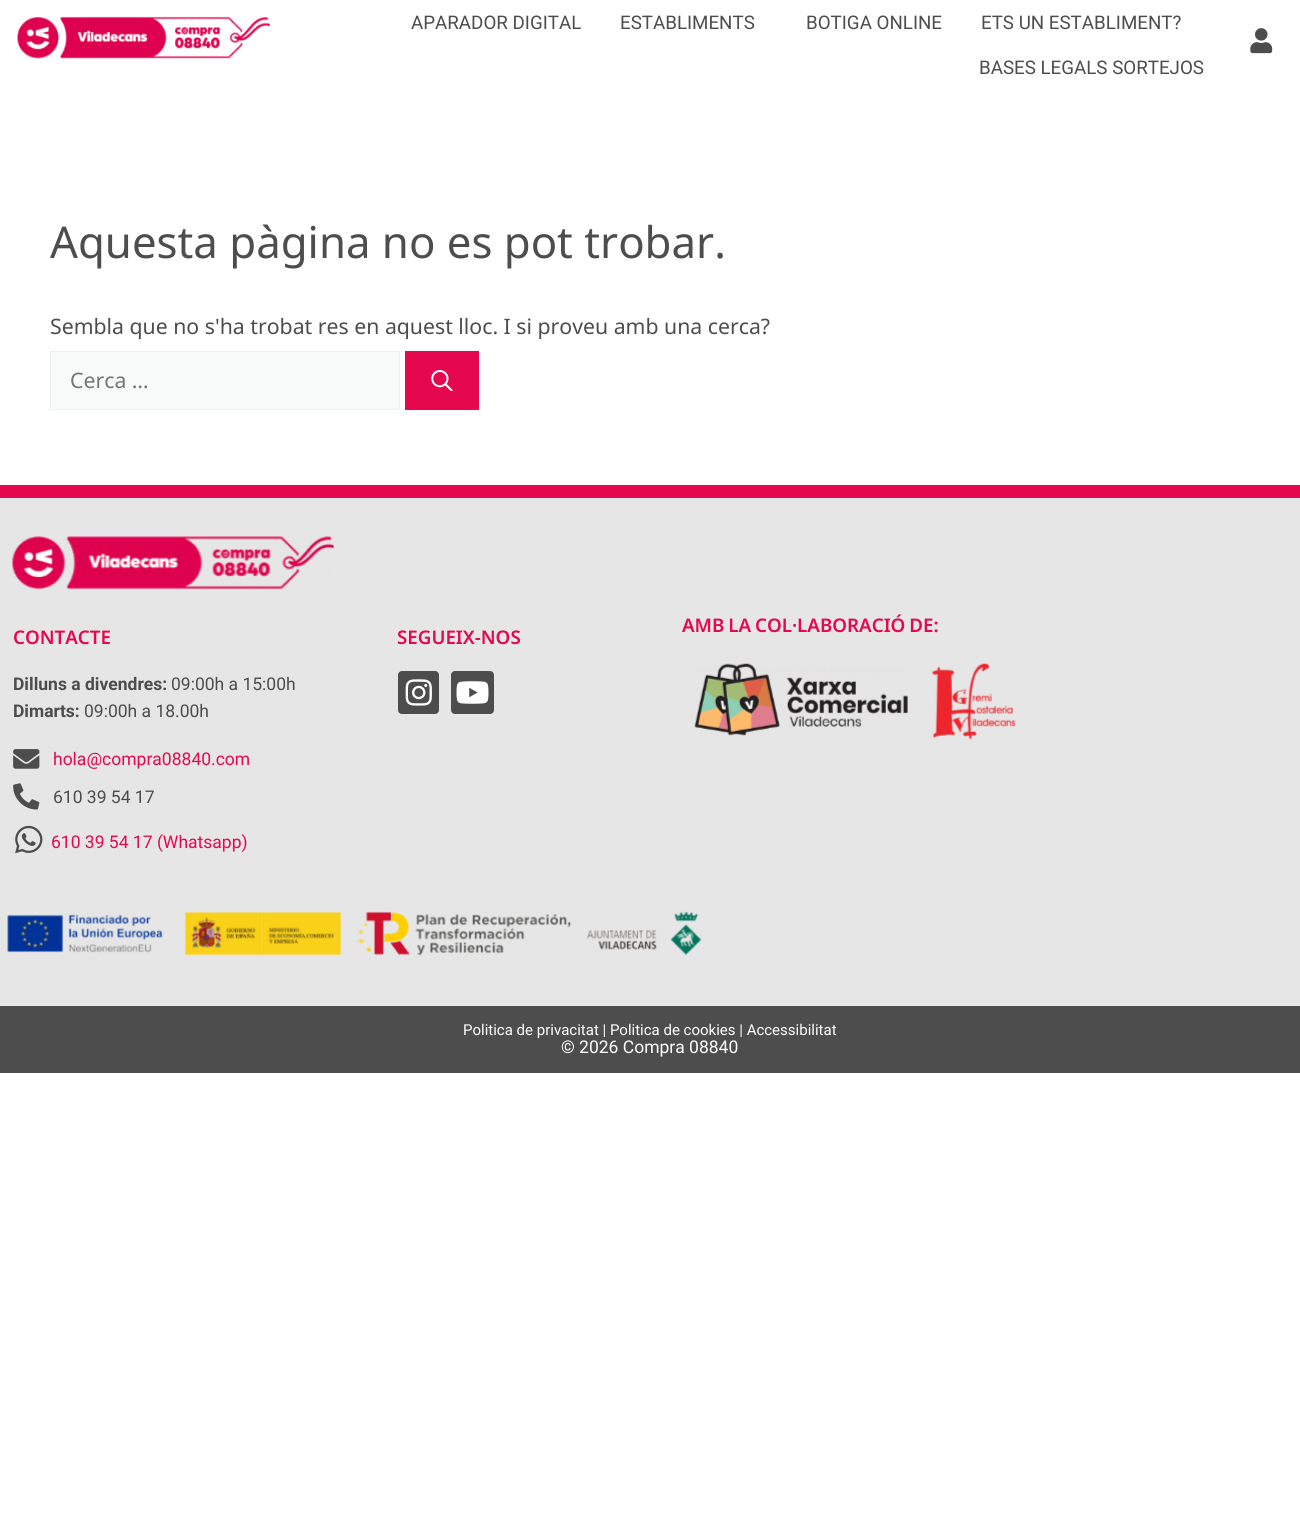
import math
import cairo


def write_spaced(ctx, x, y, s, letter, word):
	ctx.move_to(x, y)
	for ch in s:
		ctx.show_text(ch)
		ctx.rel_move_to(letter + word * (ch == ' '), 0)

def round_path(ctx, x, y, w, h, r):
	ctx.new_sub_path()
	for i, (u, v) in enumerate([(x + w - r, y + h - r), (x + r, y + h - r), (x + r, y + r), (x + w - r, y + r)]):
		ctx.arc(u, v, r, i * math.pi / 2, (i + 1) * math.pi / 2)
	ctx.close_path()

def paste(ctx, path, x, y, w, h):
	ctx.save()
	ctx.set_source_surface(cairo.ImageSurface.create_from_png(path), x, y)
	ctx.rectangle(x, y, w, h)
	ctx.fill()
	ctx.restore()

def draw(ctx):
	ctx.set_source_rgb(1, 1, 1)
	ctx.paint()
	paste(ctx, 'media/1.png', 17, 16, 253, 43)
	ctx.select_font_face('Roboto')
	ctx.set_font_size(18.75)
	ctx.set_source_rgb(0.302, 0.302, 0.302)
	for x, y, s in [
		(411, 29, 'APARADOR DIGITAL'),
		(620, 29, 'ESTABLIMENTS'),
		(806, 29, 'BOTIGA ONLINE'),
		(981, 29, 'ETS UN ESTABLIMENT?'),
		(979, 74, 'BASES LEGALS SORTEJOS'),
	]:
		ctx.move_to(x, y)
		ctx.show_text(s)
	paste(ctx, 'media/2.png', 1250, 28, 23, 26)
	ctx.select_font_face('Noto Sans')
	ctx.set_font_size(43.75)
	ctx.move_to(50, 258)
	ctx.show_text('Aquesta pàgina no es pot trobar.')
	ctx.set_font_size(21.25)
	ctx.move_to(50, 334)
	ctx.show_text('Sembla que no s\'ha trobat res en aquest lloc. I si proveu amb una cerca?')
	ctx.set_source_rgb(0.969, 0.973, 0.976)
	ctx.rectangle(50.5, 351.5, 349, 58)
	ctx.fill_preserve()
	ctx.set_source_rgb(0.941, 0.941, 0.941)
	ctx.set_line_width(1)
	ctx.stroke()
	ctx.set_source_rgb(0.459, 0.459, 0.459)
	ctx.move_to(70, 388)
	ctx.show_text('Cerca …')
	ctx.set_source_rgb(0.898, 0.035, 0.306)
	ctx.rectangle(405, 351, 74, 59)
	ctx.fill()
	paste(ctx, 'media/3.png', 431, 370, 22, 21)
	ctx.set_source_rgb(0.902, 0.902, 0.902)
	ctx.rectangle(0, 498, 1300, 508)
	ctx.fill()
	ctx.set_source_rgb(0.898, 0.035, 0.306)
	ctx.rectangle(0, 485, 1300, 13)
	ctx.fill()
	paste(ctx, 'media/4.png', 12, 536, 322, 54)
	ctx.select_font_face('Noto Sans SemiBold')
	ctx.set_font_size(18.75)
	write_spaced(ctx, 682, 632, 'AMB LA COL·LABORACIÓ DE:', 0, -1)
	paste(ctx, 'media/5.png', 694, 663, 214, 73)
	paste(ctx, 'media/6.png', 931, 663, 85, 76)
	ctx.move_to(13, 644)
	ctx.show_text('CONTACTE')
	ctx.select_font_face('Roboto', cairo.FONT_SLANT_NORMAL, cairo.FONT_WEIGHT_BOLD)
	ctx.set_font_size(17.5)
	ctx.set_source_rgb(0.302, 0.302, 0.302)
	ctx.move_to(13, 690)
	ctx.show_text('Dilluns a divendres:')
	ctx.select_font_face('Roboto')
	ctx.move_to(171, 690)
	ctx.show_text('09:00h a 15:00h')
	ctx.select_font_face('Roboto', cairo.FONT_SLANT_NORMAL, cairo.FONT_WEIGHT_BOLD)
	ctx.move_to(13, 717)
	ctx.show_text('Dimarts:')
	ctx.select_font_face('Roboto')
	ctx.move_to(84, 717)
	ctx.show_text('09:00h a 18.00h')
	paste(ctx, 'media/7.png', 13, 749, 27, 20)
	ctx.set_source_rgb(0.898, 0.035, 0.306)
	ctx.move_to(53, 765)
	ctx.show_text('hola@compra08840.com')
	paste(ctx, 'media/8.png', 13, 783, 27, 27)
	ctx.set_source_rgb(0.302, 0.302, 0.302)
	ctx.move_to(53, 803)
	ctx.show_text('610 39 54 17')
	paste(ctx, 'media/9.png', 15, 825, 28, 29)
	ctx.set_source_rgb(0.898, 0.035, 0.306)
	ctx.move_to(51, 848)
	ctx.show_text('610 39 54 17 (Whatsapp)')
	ctx.select_font_face('Noto Sans SemiBold')
	ctx.set_font_size(18.75)
	ctx.move_to(397, 644)
	ctx.show_text('SEGUEIX-NOS')
	ctx.set_source_rgb(0.302, 0.302, 0.302)
	round_path(ctx, 398, 671, 41, 43, 4)
	ctx.fill()
	paste(ctx, 'media/10.png', 405, 679, 27, 27)
	round_path(ctx, 451, 671, 43, 43, 4)
	ctx.fill()
	paste(ctx, 'media/11.png', 456, 681, 33, 23)
	paste(ctx, 'media/12.png', 7, 911, 695, 45)
	ctx.rectangle(0, 1006, 1300, 67)
	ctx.fill()
	ctx.select_font_face('Roboto')
	ctx.set_font_size(15)
	ctx.set_source_rgb(1, 1, 1)
	ctx.move_to(463, 1035)
	ctx.show_text('Politica de privacitat | Politica de cookies | Accessibilitat')
	ctx.set_font_size(17.5)
	ctx.move_to(561, 1053)
	ctx.show_text('© 2026 Compra 08840')


surface = cairo.ImageSurface(cairo.FORMAT_RGB24, 1300, 1521)
ctx = cairo.Context(surface)
options = cairo.FontOptions()
options.set_hint_metrics(cairo.HINT_METRICS_OFF)
options.set_hint_style(cairo.HINT_STYLE_NONE)
ctx.set_font_options(options)
ctx.set_miter_limit(4)
draw(ctx)
surface.write_to_png('image.png')
